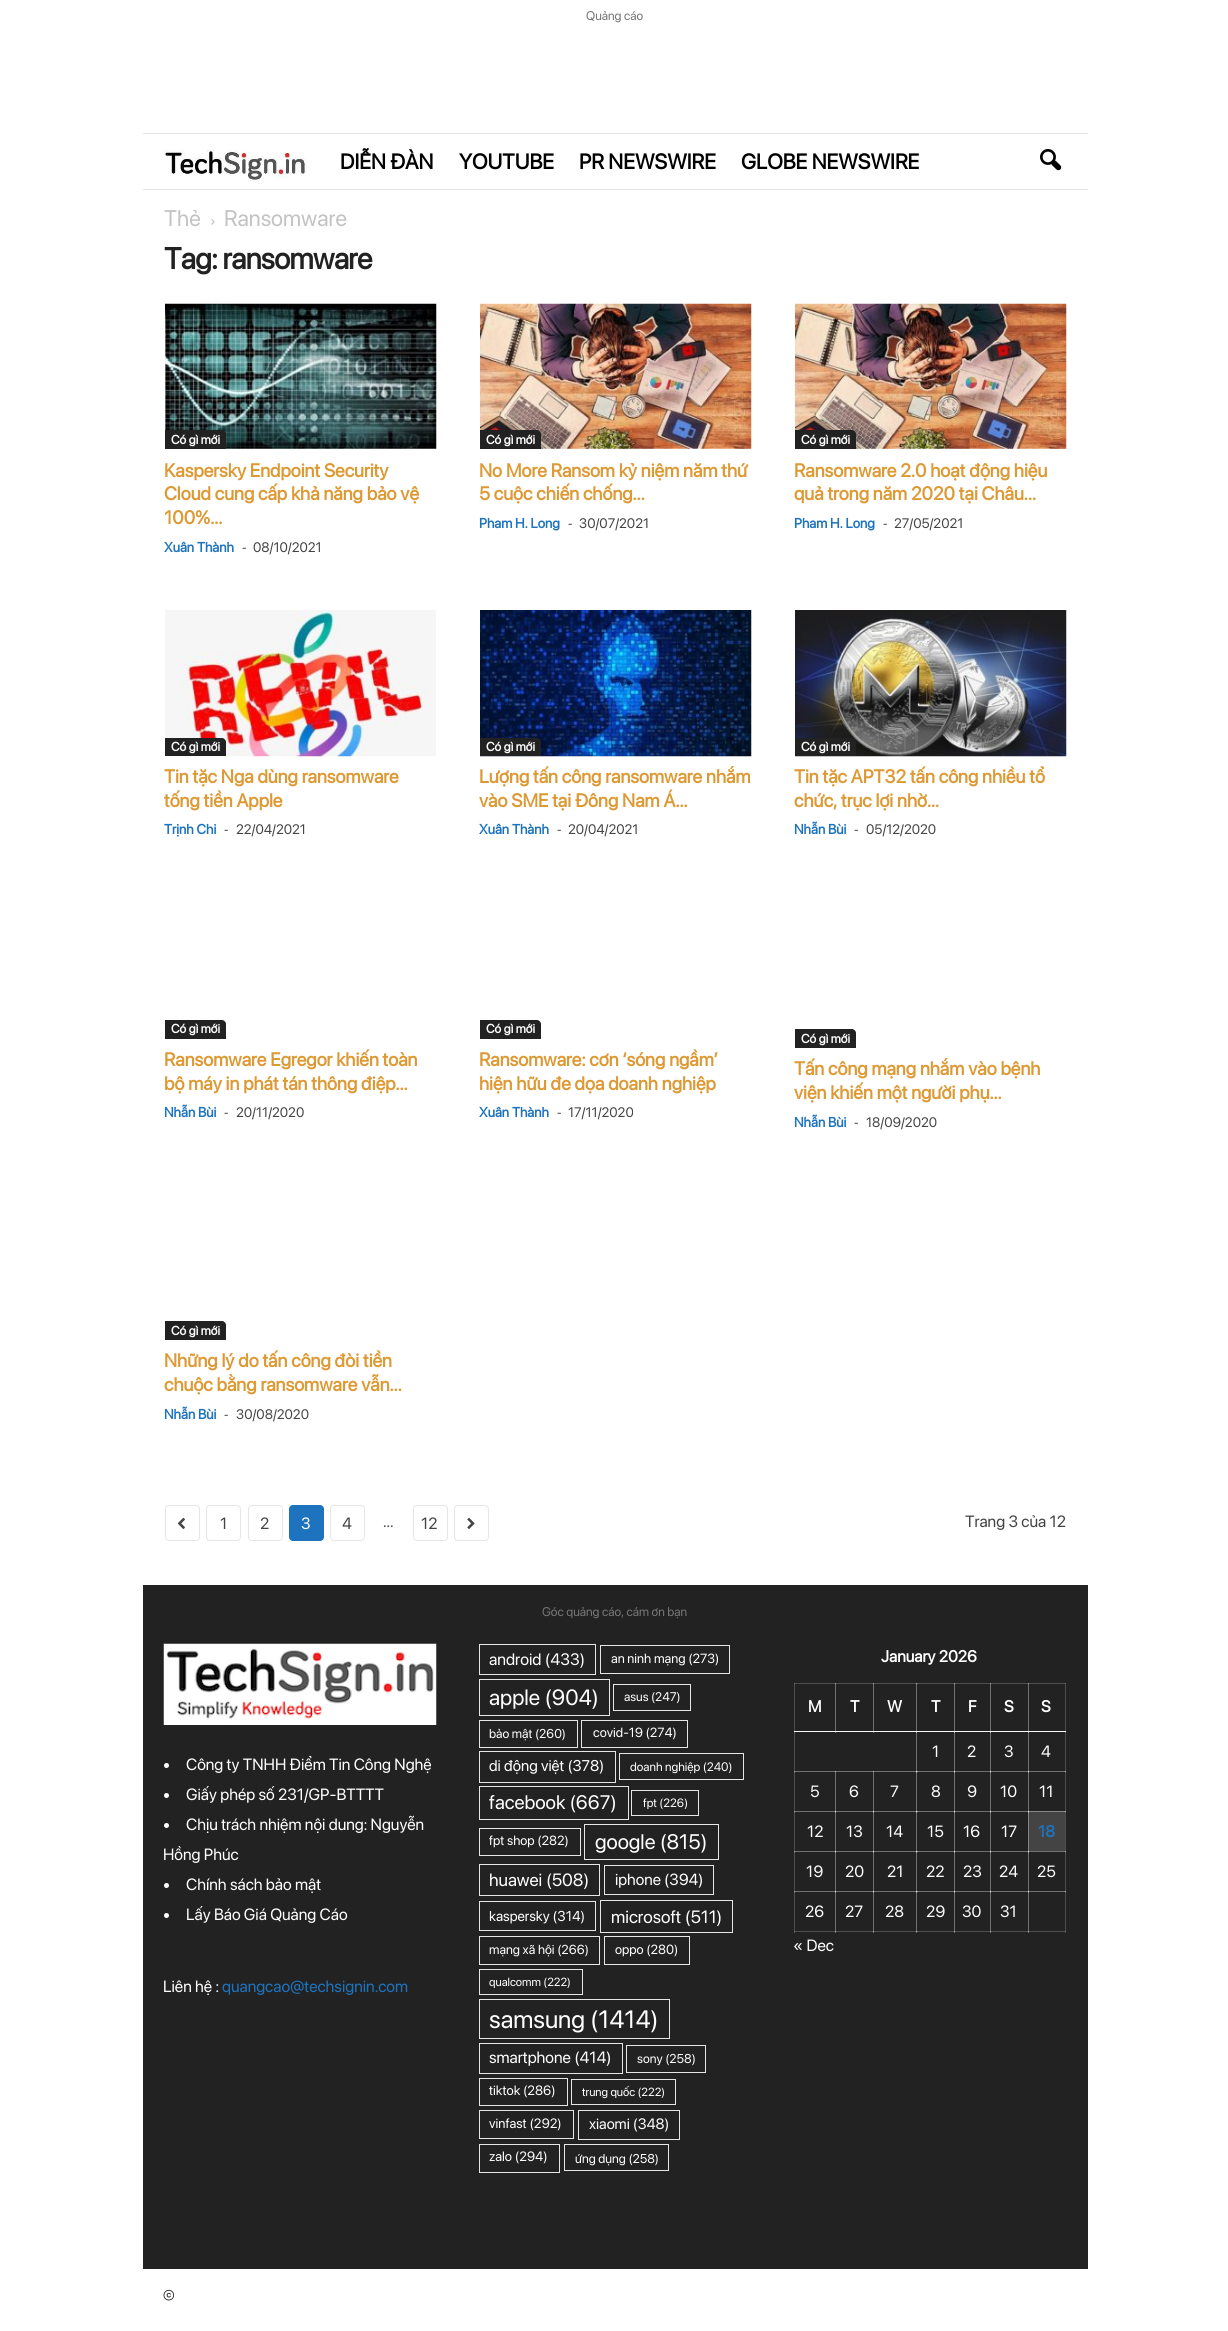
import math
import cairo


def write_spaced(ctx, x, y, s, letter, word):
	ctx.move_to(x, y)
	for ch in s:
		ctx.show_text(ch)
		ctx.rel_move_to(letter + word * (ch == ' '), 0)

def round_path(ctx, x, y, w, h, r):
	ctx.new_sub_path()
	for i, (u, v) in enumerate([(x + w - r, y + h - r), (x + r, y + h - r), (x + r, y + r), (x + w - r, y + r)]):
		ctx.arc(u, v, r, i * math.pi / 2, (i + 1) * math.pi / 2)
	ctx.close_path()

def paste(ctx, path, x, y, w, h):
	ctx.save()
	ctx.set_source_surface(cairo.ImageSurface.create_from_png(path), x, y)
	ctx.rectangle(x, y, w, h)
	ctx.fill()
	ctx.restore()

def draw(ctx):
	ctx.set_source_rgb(1, 1, 1)
	ctx.paint()
	ctx.select_font_face('SF Pro Display')
	ctx.set_font_size(12.5)
	ctx.set_source_rgb(0.463, 0.463, 0.463)
	ctx.move_to(586, 20)
	ctx.show_text('Quảng cáo')
	ctx.set_source_rgb(0.902, 0.902, 0.902)
	ctx.rectangle(143, 133, 945, 1)
	ctx.fill()
	ctx.rectangle(143, 189, 945, 1)
	ctx.fill()
	paste(ctx, 'media/1.png', 163, 149, 143, 33)
	ctx.select_font_face('SF Pro Display', cairo.FONT_SLANT_NORMAL, cairo.FONT_WEIGHT_BOLD)
	ctx.set_font_size(21.25)
	ctx.set_source_rgb(0, 0, 0)
	for x, y, s in [
		(340, 169, 'DIỄN ĐÀN'),
		(459, 169, 'YOUTUBE'),
		(579, 169, 'PR NEWSWIRE'),
		(741, 169, 'GLOBE NEWSWIRE'),
	]:
		ctx.move_to(x, y)
		ctx.show_text(s)
	paste(ctx, 'media/2.png', 1040, 149, 22, 22)
	ctx.select_font_face('SF Pro Display')
	ctx.set_font_size(22.5)
	ctx.set_source_rgb(0.765, 0.765, 0.765)
	ctx.move_to(164, 226)
	ctx.show_text('Thẻ')
	paste(ctx, 'media/3.png', 211, 219, 4, 6)
	ctx.move_to(224, 226)
	ctx.show_text('Ransomware')
	ctx.select_font_face('SF Pro Display', cairo.FONT_SLANT_NORMAL, cairo.FONT_WEIGHT_BOLD)
	ctx.set_font_size(30)
	ctx.set_source_rgb(0.133, 0.133, 0.133)
	write_spaced(ctx, 164, 269, 'Tag: ransomware', -0.6, 0)
	paste(ctx, 'media/4.png', 165, 303, 272, 146)
	ctx.new_path()
	ctx.move_to(165, 430)
	ctx.line_to(222, 430)
	ctx.curve_to(224, 430, 226, 432, 226, 434)
	ctx.line_to(226, 449)
	ctx.line_to(165, 449)
	ctx.close_path()
	ctx.fill()
	ctx.set_font_size(12.5)
	ctx.set_source_rgb(1, 1, 1)
	ctx.move_to(171, 444)
	ctx.show_text('Có gì mới')
	ctx.set_font_size(18.75)
	ctx.set_source_rgb(0.867, 0.6, 0.2)
	for x, y, s in [
		(164, 477, 'Kaspersky Endpoint Security'),
		(164, 500, 'Cloud cung cấp khả năng bảo vệ'),
		(164, 524, '100%...'),
	]:
		ctx.move_to(x, y)
		ctx.show_text(s)
	ctx.set_font_size(13.75)
	ctx.set_source_rgb(0.118, 0.451, 0.745)
	ctx.move_to(164, 552)
	ctx.show_text('Xuân Thành')
	ctx.select_font_face('Open Sans')
	ctx.set_source_rgb(0.267, 0.267, 0.267)
	ctx.move_to(242, 552)
	ctx.show_text('-')
	ctx.select_font_face('SF Pro Display')
	ctx.move_to(253, 552)
	ctx.show_text('08/10/2021')
	paste(ctx, 'media/5.png', 480, 303, 272, 146)
	ctx.set_source_rgb(0.133, 0.133, 0.133)
	ctx.new_path()
	ctx.move_to(480, 430)
	ctx.line_to(537, 430)
	ctx.curve_to(539, 430, 541, 432, 541, 434)
	ctx.line_to(541, 449)
	ctx.line_to(480, 449)
	ctx.close_path()
	ctx.fill()
	ctx.select_font_face('SF Pro Display', cairo.FONT_SLANT_NORMAL, cairo.FONT_WEIGHT_BOLD)
	ctx.set_font_size(12.5)
	ctx.set_source_rgb(1, 1, 1)
	ctx.move_to(486, 444)
	ctx.show_text('Có gì mới')
	ctx.set_font_size(18.75)
	ctx.set_source_rgb(0.867, 0.6, 0.2)
	ctx.move_to(479, 477)
	ctx.show_text('No More Ransom kỷ niệm năm thứ')
	ctx.move_to(479, 500)
	ctx.show_text('5 cuộc chiến chống...')
	ctx.set_font_size(13.75)
	ctx.set_source_rgb(0.118, 0.451, 0.745)
	ctx.move_to(479, 528)
	ctx.show_text('Pham H. Long')
	ctx.select_font_face('Open Sans')
	ctx.set_source_rgb(0.267, 0.267, 0.267)
	ctx.move_to(568, 528)
	ctx.show_text('-')
	ctx.select_font_face('SF Pro Display')
	ctx.move_to(579, 528)
	ctx.show_text('30/07/2021')
	paste(ctx, 'media/6.png', 795, 303, 272, 146)
	ctx.set_source_rgb(0.133, 0.133, 0.133)
	ctx.new_path()
	ctx.move_to(795, 430)
	ctx.line_to(852, 430)
	ctx.curve_to(854, 430, 856, 432, 856, 434)
	ctx.line_to(856, 449)
	ctx.line_to(795, 449)
	ctx.close_path()
	ctx.fill()
	ctx.select_font_face('SF Pro Display', cairo.FONT_SLANT_NORMAL, cairo.FONT_WEIGHT_BOLD)
	ctx.set_font_size(12.5)
	ctx.set_source_rgb(1, 1, 1)
	ctx.move_to(801, 444)
	ctx.show_text('Có gì mới')
	ctx.set_font_size(18.75)
	ctx.set_source_rgb(0.867, 0.6, 0.2)
	ctx.move_to(794, 477)
	ctx.show_text('Ransomware 2.0 hoạt động hiệu')
	ctx.move_to(794, 500)
	ctx.show_text('quả trong năm 2020 tại Châu...')
	ctx.set_font_size(13.75)
	ctx.set_source_rgb(0.118, 0.451, 0.745)
	ctx.move_to(794, 528)
	ctx.show_text('Pham H. Long')
	ctx.select_font_face('Open Sans')
	ctx.set_source_rgb(0.267, 0.267, 0.267)
	ctx.move_to(883, 528)
	ctx.show_text('-')
	ctx.select_font_face('SF Pro Display')
	ctx.move_to(894, 528)
	ctx.show_text('27/05/2021')
	paste(ctx, 'media/7.png', 165, 610, 271, 147)
	ctx.set_source_rgb(0.133, 0.133, 0.133)
	ctx.new_path()
	ctx.move_to(165, 738)
	ctx.line_to(222, 738)
	ctx.curve_to(224, 738, 226, 740, 226, 742)
	ctx.line_to(226, 756)
	ctx.line_to(165, 756)
	ctx.close_path()
	ctx.fill()
	ctx.select_font_face('SF Pro Display', cairo.FONT_SLANT_NORMAL, cairo.FONT_WEIGHT_BOLD)
	ctx.set_font_size(12.5)
	ctx.set_source_rgb(1, 1, 1)
	ctx.move_to(171, 751)
	ctx.show_text('Có gì mới')
	ctx.set_font_size(18.75)
	ctx.set_source_rgb(0.867, 0.6, 0.2)
	ctx.move_to(164, 783)
	ctx.show_text('Tin tặc Nga dùng ransomware')
	ctx.move_to(164, 807)
	ctx.show_text('tống tiền Apple')
	ctx.set_font_size(13.75)
	ctx.set_source_rgb(0.118, 0.451, 0.745)
	ctx.move_to(164, 834)
	ctx.show_text('Trịnh Chi')
	ctx.select_font_face('Open Sans')
	ctx.set_source_rgb(0.267, 0.267, 0.267)
	ctx.move_to(224, 834)
	ctx.show_text('-')
	ctx.select_font_face('SF Pro Display')
	ctx.move_to(236, 834)
	ctx.show_text('22/04/2021')
	paste(ctx, 'media/8.png', 480, 610, 272, 147)
	ctx.set_source_rgb(0.133, 0.133, 0.133)
	ctx.new_path()
	ctx.move_to(480, 738)
	ctx.line_to(537, 738)
	ctx.curve_to(539, 738, 541, 740, 541, 742)
	ctx.line_to(541, 756)
	ctx.line_to(480, 756)
	ctx.close_path()
	ctx.fill()
	ctx.select_font_face('SF Pro Display', cairo.FONT_SLANT_NORMAL, cairo.FONT_WEIGHT_BOLD)
	ctx.set_font_size(12.5)
	ctx.set_source_rgb(1, 1, 1)
	ctx.move_to(486, 751)
	ctx.show_text('Có gì mới')
	ctx.set_font_size(18.75)
	ctx.set_source_rgb(0.867, 0.6, 0.2)
	ctx.move_to(479, 783)
	ctx.show_text('Lượng tấn công ransomware nhắm')
	ctx.move_to(479, 807)
	ctx.show_text('vào SME tại Đông Nam Á...')
	ctx.set_font_size(13.75)
	ctx.set_source_rgb(0.118, 0.451, 0.745)
	ctx.move_to(479, 834)
	ctx.show_text('Xuân Thành')
	ctx.select_font_face('Open Sans')
	ctx.set_source_rgb(0.267, 0.267, 0.267)
	ctx.move_to(557, 834)
	ctx.show_text('-')
	ctx.select_font_face('SF Pro Display')
	ctx.move_to(568, 834)
	ctx.show_text('20/04/2021')
	paste(ctx, 'media/9.png', 795, 610, 272, 147)
	ctx.set_source_rgb(0.133, 0.133, 0.133)
	ctx.new_path()
	ctx.move_to(795, 738)
	ctx.line_to(852, 738)
	ctx.curve_to(854, 738, 856, 740, 856, 742)
	ctx.line_to(856, 756)
	ctx.line_to(795, 756)
	ctx.close_path()
	ctx.fill()
	ctx.select_font_face('SF Pro Display', cairo.FONT_SLANT_NORMAL, cairo.FONT_WEIGHT_BOLD)
	ctx.set_font_size(12.5)
	ctx.set_source_rgb(1, 1, 1)
	ctx.move_to(801, 751)
	ctx.show_text('Có gì mới')
	ctx.set_font_size(18.75)
	ctx.set_source_rgb(0.867, 0.6, 0.2)
	ctx.move_to(794, 783)
	ctx.show_text('Tin tặc APT32 tấn công nhiều tổ')
	ctx.move_to(794, 807)
	ctx.show_text('chức, trục lợi nhờ...')
	ctx.set_font_size(13.75)
	ctx.set_source_rgb(0.118, 0.451, 0.745)
	ctx.move_to(794, 834)
	ctx.show_text('Nhẫn Bùi')
	ctx.select_font_face('Open Sans')
	ctx.set_source_rgb(0.267, 0.267, 0.267)
	ctx.move_to(854, 834)
	ctx.show_text('-')
	ctx.select_font_face('SF Pro Display')
	ctx.move_to(866, 834)
	ctx.show_text('05/12/2020')
	ctx.set_source_rgb(0.133, 0.133, 0.133)
	ctx.new_path()
	ctx.move_to(165, 1020)
	ctx.line_to(222, 1020)
	ctx.curve_to(224, 1020, 226, 1022, 226, 1024)
	ctx.line_to(226, 1039)
	ctx.line_to(165, 1039)
	ctx.close_path()
	ctx.fill()
	ctx.select_font_face('SF Pro Display', cairo.FONT_SLANT_NORMAL, cairo.FONT_WEIGHT_BOLD)
	ctx.set_font_size(12.5)
	ctx.set_source_rgb(1, 1, 1)
	ctx.move_to(171, 1033)
	ctx.show_text('Có gì mới')
	ctx.set_font_size(18.75)
	ctx.set_source_rgb(0.867, 0.6, 0.2)
	ctx.move_to(164, 1066)
	ctx.show_text('Ransomware Egregor khiến toàn')
	ctx.move_to(164, 1090)
	ctx.show_text('bộ máy in phát tán thông điệp...')
	ctx.set_font_size(13.75)
	ctx.set_source_rgb(0.118, 0.451, 0.745)
	ctx.move_to(164, 1117)
	ctx.show_text('Nhẫn Bùi')
	ctx.select_font_face('Open Sans')
	ctx.set_source_rgb(0.267, 0.267, 0.267)
	ctx.move_to(224, 1117)
	ctx.show_text('-')
	ctx.select_font_face('SF Pro Display')
	ctx.move_to(236, 1117)
	ctx.show_text('20/11/2020')
	ctx.set_source_rgb(0.133, 0.133, 0.133)
	ctx.new_path()
	ctx.move_to(480, 1020)
	ctx.line_to(537, 1020)
	ctx.curve_to(539, 1020, 541, 1022, 541, 1024)
	ctx.line_to(541, 1039)
	ctx.line_to(480, 1039)
	ctx.close_path()
	ctx.fill()
	ctx.select_font_face('SF Pro Display', cairo.FONT_SLANT_NORMAL, cairo.FONT_WEIGHT_BOLD)
	ctx.set_font_size(12.5)
	ctx.set_source_rgb(1, 1, 1)
	ctx.move_to(486, 1033)
	ctx.show_text('Có gì mới')
	ctx.set_font_size(18.75)
	ctx.set_source_rgb(0.867, 0.6, 0.2)
	ctx.move_to(479, 1066)
	ctx.show_text('Ransomware: cơn ‘sóng ngầm’')
	ctx.move_to(479, 1090)
	ctx.show_text('hiện hữu đe dọa doanh nghiệp')
	ctx.set_font_size(13.75)
	ctx.set_source_rgb(0.118, 0.451, 0.745)
	ctx.move_to(479, 1117)
	ctx.show_text('Xuân Thành')
	ctx.select_font_face('Open Sans')
	ctx.set_source_rgb(0.267, 0.267, 0.267)
	ctx.move_to(557, 1117)
	ctx.show_text('-')
	ctx.select_font_face('SF Pro Display')
	ctx.move_to(568, 1117)
	ctx.show_text('17/11/2020')
	ctx.set_source_rgb(0.133, 0.133, 0.133)
	ctx.new_path()
	ctx.move_to(795, 1029)
	ctx.line_to(852, 1029)
	ctx.curve_to(854, 1029, 856, 1031, 856, 1033)
	ctx.line_to(856, 1048)
	ctx.line_to(795, 1048)
	ctx.close_path()
	ctx.fill()
	ctx.select_font_face('SF Pro Display', cairo.FONT_SLANT_NORMAL, cairo.FONT_WEIGHT_BOLD)
	ctx.set_font_size(12.5)
	ctx.set_source_rgb(1, 1, 1)
	ctx.move_to(801, 1043)
	ctx.show_text('Có gì mới')
	ctx.set_font_size(18.75)
	ctx.set_source_rgb(0.867, 0.6, 0.2)
	ctx.move_to(794, 1075)
	ctx.show_text('Tấn công mạng nhắm vào bệnh')
	ctx.move_to(794, 1099)
	ctx.show_text('viện khiến một người phụ...')
	ctx.set_font_size(13.75)
	ctx.set_source_rgb(0.118, 0.451, 0.745)
	ctx.move_to(794, 1127)
	ctx.show_text('Nhẫn Bùi')
	ctx.select_font_face('Open Sans')
	ctx.set_source_rgb(0.267, 0.267, 0.267)
	ctx.move_to(854, 1127)
	ctx.show_text('-')
	ctx.select_font_face('SF Pro Display')
	ctx.move_to(866, 1127)
	ctx.show_text('18/09/2020')
	ctx.set_source_rgb(0.133, 0.133, 0.133)
	ctx.new_path()
	ctx.move_to(165, 1321)
	ctx.line_to(222, 1321)
	ctx.curve_to(224, 1321, 226, 1323, 226, 1325)
	ctx.line_to(226, 1340)
	ctx.line_to(165, 1340)
	ctx.close_path()
	ctx.fill()
	ctx.select_font_face('SF Pro Display', cairo.FONT_SLANT_NORMAL, cairo.FONT_WEIGHT_BOLD)
	ctx.set_font_size(12.5)
	ctx.set_source_rgb(1, 1, 1)
	ctx.move_to(171, 1335)
	ctx.show_text('Có gì mới')
	ctx.set_font_size(18.75)
	ctx.set_source_rgb(0.867, 0.6, 0.2)
	ctx.move_to(164, 1367)
	ctx.show_text('Những lý do tấn công đòi tiền')
	ctx.move_to(164, 1391)
	ctx.show_text('chuộc bằng ransomware vẫn...')
	ctx.set_font_size(13.75)
	ctx.set_source_rgb(0.118, 0.451, 0.745)
	ctx.move_to(164, 1419)
	ctx.show_text('Nhẫn Bùi')
	ctx.select_font_face('Open Sans')
	ctx.set_source_rgb(0.267, 0.267, 0.267)
	ctx.move_to(224, 1419)
	ctx.show_text('-')
	ctx.select_font_face('SF Pro Display')
	ctx.move_to(236, 1419)
	ctx.show_text('30/08/2020')
	round_path(ctx, 165.5, 1505.5, 34, 35, 3.5)
	ctx.set_source_rgb(0.902, 0.902, 0.902)
	ctx.set_line_width(1)
	ctx.stroke()
	paste(ctx, 'media/10.png', 177, 1517, 8, 12)
	round_path(ctx, 206.5, 1505.5, 34, 35, 3.5)
	ctx.stroke()
	ctx.set_font_size(16.25)
	ctx.set_source_rgb(0.267, 0.267, 0.267)
	ctx.move_to(220, 1529)
	ctx.show_text('1')
	round_path(ctx, 248.5, 1505.5, 34, 35, 3.5)
	ctx.set_source_rgb(0.902, 0.902, 0.902)
	ctx.stroke()
	ctx.set_source_rgb(0.267, 0.267, 0.267)
	ctx.move_to(260, 1529)
	ctx.show_text('2')
	ctx.set_source_rgb(0.118, 0.451, 0.745)
	round_path(ctx, 289.5, 1505.5, 34, 35, 3.5)
	ctx.fill_preserve()
	ctx.stroke()
	ctx.set_source_rgb(1, 1, 1)
	ctx.move_to(301, 1529)
	ctx.show_text('3')
	round_path(ctx, 330.5, 1505.5, 34, 35, 3.5)
	ctx.set_source_rgb(0.902, 0.902, 0.902)
	ctx.stroke()
	ctx.set_source_rgb(0.267, 0.267, 0.267)
	ctx.move_to(342, 1529)
	ctx.show_text('4')
	ctx.move_to(383, 1527)
	ctx.show_text('...')
	round_path(ctx, 413.5, 1505.5, 34, 35, 3.5)
	ctx.set_source_rgb(0.902, 0.902, 0.902)
	ctx.stroke()
	ctx.set_source_rgb(0.267, 0.267, 0.267)
	ctx.move_to(421, 1529)
	ctx.show_text('12')
	round_path(ctx, 454.5, 1505.5, 34, 35, 3.5)
	ctx.set_source_rgb(0.902, 0.902, 0.902)
	ctx.stroke()
	paste(ctx, 'media/11.png', 467, 1517, 8, 12)
	ctx.set_source_rgb(0.267, 0.267, 0.267)
	ctx.move_to(965, 1527)
	ctx.show_text('Trang 3 của 12')
	ctx.set_source_rgb(0.133, 0.133, 0.133)
	ctx.rectangle(143, 1585, 945, 684)
	ctx.fill()
	ctx.set_source_rgb(0.306, 0.306, 0.306)
	ctx.rectangle(794, 1683, 1, 250)
	ctx.rectangle(794, 1683, 42, 1)
	ctx.fill()
	ctx.set_source_rgb(0.443, 0.443, 0.443)
	ctx.rectangle(794, 1683, 1, 1)
	ctx.rectangle(835, 1683, 1, 50)
	ctx.fill()
	ctx.set_source_rgb(0.306, 0.306, 0.306)
	ctx.rectangle(835, 1683, 39, 1)
	ctx.fill()
	ctx.set_source_rgb(0.643, 0.643, 0.643)
	ctx.rectangle(835, 1683, 1, 1)
	ctx.fill()
	ctx.set_source_rgb(0.443, 0.443, 0.443)
	ctx.rectangle(873, 1683, 1, 50)
	ctx.fill()
	ctx.set_source_rgb(0.306, 0.306, 0.306)
	ctx.rectangle(873, 1683, 45, 1)
	ctx.fill()
	ctx.set_source_rgb(0.643, 0.643, 0.643)
	ctx.rectangle(873, 1683, 1, 1)
	ctx.fill()
	ctx.set_source_rgb(0.443, 0.443, 0.443)
	ctx.rectangle(916, 1683, 1, 90)
	ctx.fill()
	ctx.set_source_rgb(0.306, 0.306, 0.306)
	ctx.rectangle(916, 1683, 39, 1)
	ctx.fill()
	ctx.set_source_rgb(0.443, 0.443, 0.443)
	ctx.rectangle(916, 1683, 2, 1)
	ctx.fill()
	ctx.set_source_rgb(0.643, 0.643, 0.643)
	ctx.rectangle(916, 1683, 1, 1)
	ctx.fill()
	ctx.set_source_rgb(0.443, 0.443, 0.443)
	ctx.rectangle(954, 1683, 1, 90)
	ctx.fill()
	ctx.set_source_rgb(0.306, 0.306, 0.306)
	ctx.rectangle(954, 1683, 37, 1)
	ctx.fill()
	ctx.set_source_rgb(0.643, 0.643, 0.643)
	ctx.rectangle(954, 1683, 1, 1)
	ctx.fill()
	ctx.set_source_rgb(0.443, 0.443, 0.443)
	ctx.rectangle(990, 1683, 1, 90)
	ctx.fill()
	ctx.set_source_rgb(0.306, 0.306, 0.306)
	ctx.rectangle(990, 1683, 39, 1)
	ctx.fill()
	ctx.set_source_rgb(0.643, 0.643, 0.643)
	ctx.rectangle(990, 1683, 1, 1)
	ctx.fill()
	ctx.set_source_rgb(0.443, 0.443, 0.443)
	ctx.rectangle(1028, 1683, 1, 90)
	ctx.fill()
	ctx.set_source_rgb(0.306, 0.306, 0.306)
	ctx.rectangle(1065, 1683, 1, 210)
	ctx.fill()
	ctx.set_source_rgb(0.443, 0.443, 0.443)
	ctx.rectangle(794, 1731, 1, 2)
	ctx.fill()
	ctx.set_source_rgb(0.643, 0.643, 0.643)
	ctx.rectangle(916, 1731, 1, 2)
	ctx.rectangle(954, 1731, 1, 2)
	ctx.rectangle(990, 1731, 1, 2)
	ctx.rectangle(1028, 1731, 1, 2)
	ctx.fill()
	ctx.set_source_rgb(0.443, 0.443, 0.443)
	ctx.rectangle(1065, 1731, 1, 2)
	ctx.rectangle(794, 1771, 1, 2)
	ctx.rectangle(794, 1771, 42, 1)
	ctx.fill()
	ctx.set_source_rgb(0.643, 0.643, 0.643)
	ctx.rectangle(794, 1771, 1, 1)
	ctx.fill()
	ctx.set_source_rgb(0.443, 0.443, 0.443)
	ctx.rectangle(835, 1771, 1, 42)
	ctx.rectangle(835, 1771, 39, 1)
	ctx.fill()
	ctx.set_source_rgb(0.714, 0.714, 0.714)
	ctx.rectangle(835, 1771, 1, 1)
	ctx.fill()
	ctx.set_source_rgb(0.443, 0.443, 0.443)
	ctx.rectangle(873, 1771, 1, 42)
	ctx.rectangle(873, 1771, 45, 1)
	ctx.fill()
	ctx.set_source_rgb(0.714, 0.714, 0.714)
	ctx.rectangle(873, 1771, 1, 1)
	ctx.fill()
	ctx.set_source_rgb(0.443, 0.443, 0.443)
	ctx.rectangle(916, 1771, 1, 42)
	ctx.fill()
	ctx.set_source_rgb(0.643, 0.643, 0.643)
	ctx.rectangle(916, 1771, 1, 2)
	ctx.fill()
	ctx.set_source_rgb(0.443, 0.443, 0.443)
	ctx.rectangle(916, 1771, 39, 1)
	ctx.fill()
	ctx.set_source_rgb(0.643, 0.643, 0.643)
	ctx.rectangle(916, 1771, 2, 1)
	ctx.fill()
	ctx.set_source_rgb(0.855, 0.855, 0.855)
	ctx.rectangle(916, 1771, 1, 1)
	ctx.fill()
	ctx.set_source_rgb(0.443, 0.443, 0.443)
	ctx.rectangle(954, 1771, 1, 42)
	ctx.fill()
	ctx.set_source_rgb(0.643, 0.643, 0.643)
	ctx.rectangle(954, 1771, 1, 2)
	ctx.fill()
	ctx.set_source_rgb(0.443, 0.443, 0.443)
	ctx.rectangle(954, 1771, 37, 1)
	ctx.fill()
	ctx.set_source_rgb(0.855, 0.855, 0.855)
	ctx.rectangle(954, 1771, 1, 1)
	ctx.fill()
	ctx.set_source_rgb(0.443, 0.443, 0.443)
	ctx.rectangle(990, 1771, 1, 42)
	ctx.fill()
	ctx.set_source_rgb(0.643, 0.643, 0.643)
	ctx.rectangle(990, 1771, 1, 2)
	ctx.fill()
	ctx.set_source_rgb(0.443, 0.443, 0.443)
	ctx.rectangle(990, 1771, 39, 1)
	ctx.fill()
	ctx.set_source_rgb(0.855, 0.855, 0.855)
	ctx.rectangle(990, 1771, 1, 1)
	ctx.fill()
	ctx.set_source_rgb(0.443, 0.443, 0.443)
	ctx.rectangle(1028, 1771, 1, 42)
	ctx.fill()
	ctx.set_source_rgb(0.643, 0.643, 0.643)
	ctx.rectangle(1028, 1771, 1, 2)
	ctx.fill()
	ctx.set_source_rgb(0.443, 0.443, 0.443)
	ctx.rectangle(1065, 1771, 1, 2)
	ctx.rectangle(794, 1811, 1, 2)
	ctx.rectangle(794, 1811, 42, 1)
	ctx.fill()
	ctx.set_source_rgb(0.643, 0.643, 0.643)
	ctx.rectangle(794, 1811, 1, 1)
	ctx.fill()
	ctx.set_source_rgb(0.443, 0.443, 0.443)
	ctx.rectangle(835, 1811, 1, 42)
	ctx.fill()
	ctx.set_source_rgb(0.643, 0.643, 0.643)
	ctx.rectangle(835, 1811, 1, 2)
	ctx.fill()
	ctx.set_source_rgb(0.443, 0.443, 0.443)
	ctx.rectangle(835, 1811, 39, 1)
	ctx.fill()
	ctx.set_source_rgb(0.855, 0.855, 0.855)
	ctx.rectangle(835, 1811, 1, 1)
	ctx.fill()
	ctx.set_source_rgb(0.443, 0.443, 0.443)
	ctx.rectangle(873, 1811, 1, 42)
	ctx.fill()
	ctx.set_source_rgb(0.643, 0.643, 0.643)
	ctx.rectangle(873, 1811, 1, 2)
	ctx.fill()
	ctx.set_source_rgb(0.443, 0.443, 0.443)
	ctx.rectangle(873, 1811, 45, 1)
	ctx.fill()
	ctx.set_source_rgb(0.855, 0.855, 0.855)
	ctx.rectangle(873, 1811, 1, 1)
	ctx.fill()
	ctx.set_source_rgb(0.443, 0.443, 0.443)
	ctx.rectangle(916, 1811, 1, 42)
	ctx.fill()
	ctx.set_source_rgb(0.643, 0.643, 0.643)
	ctx.rectangle(916, 1811, 1, 2)
	ctx.fill()
	ctx.set_source_rgb(0.443, 0.443, 0.443)
	ctx.rectangle(916, 1811, 39, 1)
	ctx.fill()
	ctx.set_source_rgb(0.643, 0.643, 0.643)
	ctx.rectangle(916, 1811, 2, 1)
	ctx.fill()
	ctx.set_source_rgb(0.855, 0.855, 0.855)
	ctx.rectangle(916, 1811, 1, 1)
	ctx.fill()
	ctx.set_source_rgb(0.443, 0.443, 0.443)
	ctx.rectangle(954, 1811, 1, 42)
	ctx.fill()
	ctx.set_source_rgb(0.643, 0.643, 0.643)
	ctx.rectangle(954, 1811, 1, 2)
	ctx.fill()
	ctx.set_source_rgb(0.443, 0.443, 0.443)
	ctx.rectangle(954, 1811, 37, 1)
	ctx.fill()
	ctx.set_source_rgb(0.855, 0.855, 0.855)
	ctx.rectangle(954, 1811, 1, 1)
	ctx.fill()
	ctx.set_source_rgb(0.443, 0.443, 0.443)
	ctx.rectangle(990, 1811, 1, 42)
	ctx.fill()
	ctx.set_source_rgb(0.643, 0.643, 0.643)
	ctx.rectangle(990, 1811, 1, 2)
	ctx.fill()
	ctx.set_source_rgb(0.443, 0.443, 0.443)
	ctx.rectangle(990, 1811, 39, 1)
	ctx.fill()
	ctx.set_source_rgb(0.855, 0.855, 0.855)
	ctx.rectangle(990, 1811, 1, 1)
	ctx.fill()
	ctx.set_source_rgb(0.443, 0.443, 0.443)
	ctx.rectangle(1065, 1811, 1, 2)
	ctx.fill()
	ctx.set_source_rgb(0.643, 0.643, 0.643)
	ctx.rectangle(1065, 1811, 1, 1)
	ctx.fill()
	ctx.set_source_rgb(0.443, 0.443, 0.443)
	ctx.rectangle(794, 1851, 1, 2)
	ctx.rectangle(794, 1851, 42, 1)
	ctx.fill()
	ctx.set_source_rgb(0.643, 0.643, 0.643)
	ctx.rectangle(794, 1851, 1, 1)
	ctx.fill()
	ctx.set_source_rgb(0.443, 0.443, 0.443)
	ctx.rectangle(835, 1851, 1, 42)
	ctx.fill()
	ctx.set_source_rgb(0.643, 0.643, 0.643)
	ctx.rectangle(835, 1851, 1, 2)
	ctx.fill()
	ctx.set_source_rgb(0.443, 0.443, 0.443)
	ctx.rectangle(835, 1851, 39, 1)
	ctx.fill()
	ctx.set_source_rgb(0.855, 0.855, 0.855)
	ctx.rectangle(835, 1851, 1, 1)
	ctx.fill()
	ctx.set_source_rgb(0.443, 0.443, 0.443)
	ctx.rectangle(873, 1851, 1, 42)
	ctx.fill()
	ctx.set_source_rgb(0.643, 0.643, 0.643)
	ctx.rectangle(873, 1851, 1, 2)
	ctx.fill()
	ctx.set_source_rgb(0.443, 0.443, 0.443)
	ctx.rectangle(873, 1851, 45, 1)
	ctx.fill()
	ctx.set_source_rgb(0.855, 0.855, 0.855)
	ctx.rectangle(873, 1851, 1, 1)
	ctx.fill()
	ctx.set_source_rgb(0.443, 0.443, 0.443)
	ctx.rectangle(916, 1851, 1, 42)
	ctx.fill()
	ctx.set_source_rgb(0.643, 0.643, 0.643)
	ctx.rectangle(916, 1851, 1, 2)
	ctx.fill()
	ctx.set_source_rgb(0.443, 0.443, 0.443)
	ctx.rectangle(916, 1851, 39, 1)
	ctx.fill()
	ctx.set_source_rgb(0.643, 0.643, 0.643)
	ctx.rectangle(916, 1851, 2, 1)
	ctx.fill()
	ctx.set_source_rgb(0.855, 0.855, 0.855)
	ctx.rectangle(916, 1851, 1, 1)
	ctx.fill()
	ctx.set_source_rgb(0.443, 0.443, 0.443)
	ctx.rectangle(954, 1851, 1, 42)
	ctx.fill()
	ctx.set_source_rgb(0.643, 0.643, 0.643)
	ctx.rectangle(954, 1851, 1, 2)
	ctx.fill()
	ctx.set_source_rgb(0.443, 0.443, 0.443)
	ctx.rectangle(954, 1851, 37, 1)
	ctx.fill()
	ctx.set_source_rgb(0.855, 0.855, 0.855)
	ctx.rectangle(954, 1851, 1, 1)
	ctx.fill()
	ctx.set_source_rgb(0.443, 0.443, 0.443)
	ctx.rectangle(990, 1851, 1, 42)
	ctx.fill()
	ctx.set_source_rgb(0.643, 0.643, 0.643)
	ctx.rectangle(990, 1851, 1, 2)
	ctx.fill()
	ctx.set_source_rgb(0.443, 0.443, 0.443)
	ctx.rectangle(990, 1851, 39, 1)
	ctx.fill()
	ctx.set_source_rgb(0.855, 0.855, 0.855)
	ctx.rectangle(990, 1851, 1, 1)
	ctx.fill()
	ctx.set_source_rgb(0.443, 0.443, 0.443)
	ctx.rectangle(1028, 1851, 1, 42)
	ctx.fill()
	ctx.set_source_rgb(0.643, 0.643, 0.643)
	ctx.rectangle(1028, 1851, 1, 2)
	ctx.fill()
	ctx.set_source_rgb(0.443, 0.443, 0.443)
	ctx.rectangle(1065, 1851, 1, 2)
	ctx.rectangle(794, 1891, 1, 2)
	ctx.fill()
	ctx.set_source_rgb(0.306, 0.306, 0.306)
	ctx.rectangle(794, 1931, 42, 1)
	ctx.fill()
	ctx.set_source_rgb(0.443, 0.443, 0.443)
	ctx.rectangle(794, 1931, 1, 1)
	ctx.rectangle(794, 1891, 42, 1)
	ctx.fill()
	ctx.set_source_rgb(0.643, 0.643, 0.643)
	ctx.rectangle(794, 1891, 1, 1)
	ctx.fill()
	ctx.set_source_rgb(0.443, 0.443, 0.443)
	ctx.rectangle(835, 1891, 1, 42)
	ctx.fill()
	ctx.set_source_rgb(0.643, 0.643, 0.643)
	ctx.rectangle(835, 1891, 1, 2)
	ctx.fill()
	ctx.set_source_rgb(0.306, 0.306, 0.306)
	ctx.rectangle(835, 1931, 39, 1)
	ctx.fill()
	ctx.set_source_rgb(0.643, 0.643, 0.643)
	ctx.rectangle(835, 1931, 1, 1)
	ctx.fill()
	ctx.set_source_rgb(0.443, 0.443, 0.443)
	ctx.rectangle(835, 1891, 39, 1)
	ctx.fill()
	ctx.set_source_rgb(0.855, 0.855, 0.855)
	ctx.rectangle(835, 1891, 1, 1)
	ctx.fill()
	ctx.set_source_rgb(0.443, 0.443, 0.443)
	ctx.rectangle(873, 1891, 1, 42)
	ctx.fill()
	ctx.set_source_rgb(0.643, 0.643, 0.643)
	ctx.rectangle(873, 1891, 1, 2)
	ctx.fill()
	ctx.set_source_rgb(0.306, 0.306, 0.306)
	ctx.rectangle(873, 1931, 45, 1)
	ctx.fill()
	ctx.set_source_rgb(0.643, 0.643, 0.643)
	ctx.rectangle(873, 1931, 1, 1)
	ctx.fill()
	ctx.set_source_rgb(0.443, 0.443, 0.443)
	ctx.rectangle(873, 1891, 45, 1)
	ctx.fill()
	ctx.set_source_rgb(0.855, 0.855, 0.855)
	ctx.rectangle(873, 1891, 1, 1)
	ctx.fill()
	ctx.set_source_rgb(0.443, 0.443, 0.443)
	ctx.rectangle(916, 1891, 1, 42)
	ctx.fill()
	ctx.set_source_rgb(0.643, 0.643, 0.643)
	ctx.rectangle(916, 1891, 1, 2)
	ctx.fill()
	ctx.set_source_rgb(0.306, 0.306, 0.306)
	ctx.rectangle(916, 1931, 39, 1)
	ctx.fill()
	ctx.set_source_rgb(0.443, 0.443, 0.443)
	ctx.rectangle(916, 1931, 2, 1)
	ctx.fill()
	ctx.set_source_rgb(0.643, 0.643, 0.643)
	ctx.rectangle(916, 1931, 1, 1)
	ctx.fill()
	ctx.set_source_rgb(0.443, 0.443, 0.443)
	ctx.rectangle(916, 1891, 39, 1)
	ctx.fill()
	ctx.set_source_rgb(0.643, 0.643, 0.643)
	ctx.rectangle(916, 1891, 2, 1)
	ctx.fill()
	ctx.set_source_rgb(0.855, 0.855, 0.855)
	ctx.rectangle(916, 1891, 1, 1)
	ctx.fill()
	ctx.set_source_rgb(0.443, 0.443, 0.443)
	ctx.rectangle(954, 1891, 1, 42)
	ctx.fill()
	ctx.set_source_rgb(0.643, 0.643, 0.643)
	ctx.rectangle(954, 1891, 1, 2)
	ctx.fill()
	ctx.set_source_rgb(0.306, 0.306, 0.306)
	ctx.rectangle(954, 1931, 37, 1)
	ctx.fill()
	ctx.set_source_rgb(0.643, 0.643, 0.643)
	ctx.rectangle(954, 1931, 1, 1)
	ctx.fill()
	ctx.set_source_rgb(0.443, 0.443, 0.443)
	ctx.rectangle(954, 1891, 37, 1)
	ctx.fill()
	ctx.set_source_rgb(0.855, 0.855, 0.855)
	ctx.rectangle(954, 1891, 1, 1)
	ctx.fill()
	ctx.set_source_rgb(0.443, 0.443, 0.443)
	ctx.rectangle(990, 1891, 1, 42)
	ctx.fill()
	ctx.set_source_rgb(0.643, 0.643, 0.643)
	ctx.rectangle(990, 1891, 1, 2)
	ctx.fill()
	ctx.set_source_rgb(0.306, 0.306, 0.306)
	ctx.rectangle(990, 1931, 39, 1)
	ctx.fill()
	ctx.set_source_rgb(0.643, 0.643, 0.643)
	ctx.rectangle(990, 1931, 1, 1)
	ctx.fill()
	ctx.set_source_rgb(0.443, 0.443, 0.443)
	ctx.rectangle(990, 1891, 39, 1)
	ctx.fill()
	ctx.set_source_rgb(0.855, 0.855, 0.855)
	ctx.rectangle(990, 1891, 1, 1)
	ctx.fill()
	ctx.set_source_rgb(0.443, 0.443, 0.443)
	ctx.rectangle(1028, 1891, 1, 42)
	ctx.fill()
	ctx.set_source_rgb(0.643, 0.643, 0.643)
	ctx.rectangle(1028, 1891, 1, 2)
	ctx.fill()
	ctx.set_source_rgb(0.306, 0.306, 0.306)
	ctx.rectangle(1028, 1931, 38, 1)
	ctx.fill()
	ctx.set_source_rgb(0.643, 0.643, 0.643)
	ctx.rectangle(1028, 1931, 1, 1)
	ctx.fill()
	ctx.set_source_rgb(0.306, 0.306, 0.306)
	ctx.rectangle(1065, 1891, 1, 42)
	ctx.fill()
	ctx.set_source_rgb(0.443, 0.443, 0.443)
	ctx.rectangle(1065, 1891, 1, 2)
	ctx.rectangle(1065, 1931, 1, 1)
	ctx.fill()
	ctx.set_font_size(12.5)
	ctx.set_source_rgb(0.463, 0.463, 0.463)
	ctx.move_to(542, 1616)
	ctx.show_text('Góc quảng cáo, cám ơn bạn')
	paste(ctx, 'media/12.png', 163, 1643, 274, 82)
	ctx.set_source_rgb(1, 1, 1)
	ctx.arc(166.5, 1765.5, 2.5, 0, 2 * math.pi)
	ctx.fill()
	ctx.set_font_size(16.25)
	ctx.move_to(186, 1770)
	ctx.show_text('Công ty TNHH Điểm Tin Công Nghệ')
	ctx.new_path()
	ctx.arc(166.5, 1795.5, 2.5, 0, 2 * math.pi)
	ctx.fill()
	ctx.move_to(186, 1800)
	ctx.show_text('Giấy phép số 231/GP-BTTTT')
	ctx.new_path()
	ctx.arc(166.5, 1825.5, 2.5, 0, 2 * math.pi)
	ctx.fill()
	ctx.move_to(186, 1830)
	ctx.show_text('Chịu trách nhiệm nội dung: Nguyễn')
	ctx.move_to(163, 1860)
	ctx.show_text('Hồng Phúc')
	ctx.new_path()
	ctx.arc(166.5, 1885.5, 2.5, 0, 2 * math.pi)
	ctx.fill()
	ctx.move_to(186, 1890)
	ctx.show_text('Chính sách bảo mật')
	ctx.new_path()
	ctx.arc(166.5, 1915.5, 2.5, 0, 2 * math.pi)
	ctx.fill()
	ctx.move_to(186, 1920)
	ctx.show_text('Lấy Báo Giá Quảng Cáo')
	ctx.move_to(163, 1992)
	ctx.show_text('Liên hệ :')
	ctx.set_source_rgb(0.118, 0.451, 0.745)
	ctx.move_to(222, 1992)
	ctx.show_text('quangcao@techsignin.com')
	ctx.rectangle(479.5, 1644.5, 116, 30)
	ctx.set_source_rgb(0.902, 0.902, 0.902)
	ctx.stroke()
	ctx.set_font_size(16.5)
	ctx.set_source_rgb(1, 1, 1)
	ctx.move_to(489, 1665)
	ctx.show_text('android (433)')
	ctx.rectangle(600.5, 1645.5, 129, 28)
	ctx.set_source_rgb(0.902, 0.902, 0.902)
	ctx.stroke()
	ctx.set_font_size(13.25)
	ctx.set_source_rgb(1, 1, 1)
	ctx.move_to(611, 1663)
	ctx.show_text('an ninh mạng (273)')
	ctx.rectangle(479.5, 1679.5, 130, 36)
	ctx.set_source_rgb(0.902, 0.902, 0.902)
	ctx.stroke()
	ctx.set_font_size(22)
	ctx.set_source_rgb(1, 1, 1)
	ctx.move_to(489, 1705)
	ctx.show_text('apple (904)')
	ctx.rectangle(613.5, 1684.5, 77, 26)
	ctx.set_source_rgb(0.902, 0.902, 0.902)
	ctx.stroke()
	ctx.set_font_size(12.5)
	ctx.set_source_rgb(1, 1, 1)
	ctx.move_to(624, 1701)
	ctx.show_text('asus (247)')
	ctx.rectangle(479.5, 1720.5, 98, 27)
	ctx.set_source_rgb(0.902, 0.902, 0.902)
	ctx.stroke()
	ctx.set_font_size(12.75)
	ctx.set_source_rgb(1, 1, 1)
	ctx.move_to(489, 1738)
	ctx.show_text('bảo mật (260)')
	ctx.rectangle(581.5, 1720.5, 106, 27)
	ctx.set_source_rgb(0.902, 0.902, 0.902)
	ctx.stroke()
	ctx.set_font_size(13.25)
	ctx.set_source_rgb(1, 1, 1)
	ctx.move_to(593, 1737)
	ctx.show_text('covid-19 (274)')
	ctx.rectangle(479.5, 1751.5, 136, 31)
	ctx.set_source_rgb(0.902, 0.902, 0.902)
	ctx.stroke()
	ctx.set_font_size(15.5)
	ctx.set_source_rgb(1, 1, 1)
	ctx.move_to(489, 1771)
	ctx.show_text('di động việt (378)')
	ctx.rectangle(619.5, 1753.5, 124, 26)
	ctx.set_source_rgb(0.902, 0.902, 0.902)
	ctx.stroke()
	ctx.set_font_size(12.25)
	ctx.set_source_rgb(1, 1, 1)
	ctx.move_to(630, 1771)
	ctx.show_text('doanh nghiệp (240)')
	ctx.rectangle(479.5, 1786.5, 149, 33)
	ctx.set_source_rgb(0.902, 0.902, 0.902)
	ctx.stroke()
	ctx.set_font_size(19.5)
	ctx.set_source_rgb(1, 1, 1)
	ctx.move_to(489, 1809)
	ctx.show_text('facebook (667)')
	ctx.rectangle(631.5, 1790.5, 67, 25)
	ctx.set_source_rgb(0.902, 0.902, 0.902)
	ctx.stroke()
	ctx.set_font_size(12)
	ctx.set_source_rgb(1, 1, 1)
	ctx.move_to(643, 1807)
	ctx.show_text('fpt (226)')
	ctx.rectangle(479.5, 1828.5, 101, 27)
	ctx.set_source_rgb(0.902, 0.902, 0.902)
	ctx.stroke()
	ctx.set_font_size(13.25)
	ctx.set_source_rgb(1, 1, 1)
	ctx.move_to(489, 1845)
	ctx.show_text('fpt shop (282)')
	ctx.rectangle(584.5, 1824.5, 134, 35)
	ctx.set_source_rgb(0.902, 0.902, 0.902)
	ctx.stroke()
	ctx.set_font_size(21)
	ctx.set_source_rgb(1, 1, 1)
	ctx.move_to(595, 1849)
	ctx.show_text('google (815)')
	ctx.rectangle(479.5, 1864.5, 120, 31)
	ctx.set_source_rgb(0.902, 0.902, 0.902)
	ctx.stroke()
	ctx.set_font_size(17.75)
	ctx.set_source_rgb(1, 1, 1)
	ctx.move_to(489, 1886)
	ctx.show_text('huawei (508)')
	ctx.rectangle(604.5, 1865.5, 109, 29)
	ctx.set_source_rgb(0.902, 0.902, 0.902)
	ctx.stroke()
	ctx.set_font_size(16)
	ctx.set_source_rgb(1, 1, 1)
	ctx.move_to(615, 1885)
	ctx.show_text('iphone (394)')
	ctx.rectangle(479.5, 1901.5, 116, 29)
	ctx.set_source_rgb(0.902, 0.902, 0.902)
	ctx.stroke()
	ctx.set_font_size(14.25)
	ctx.set_source_rgb(1, 1, 1)
	ctx.move_to(489, 1921)
	ctx.show_text('kaspersky (314)')
	ctx.rectangle(600.5, 1900.5, 132, 32)
	ctx.set_source_rgb(0.902, 0.902, 0.902)
	ctx.stroke()
	ctx.set_font_size(17.75)
	ctx.set_source_rgb(1, 1, 1)
	ctx.move_to(611, 1923)
	ctx.show_text('microsoft (511)')
	ctx.rectangle(479.5, 1936.5, 120, 28)
	ctx.set_source_rgb(0.902, 0.902, 0.902)
	ctx.stroke()
	ctx.set_font_size(13)
	ctx.set_source_rgb(1, 1, 1)
	ctx.move_to(489, 1954)
	ctx.show_text('mạng xã hội (266)')
	ctx.rectangle(604.5, 1936.5, 85, 28)
	ctx.set_source_rgb(0.902, 0.902, 0.902)
	ctx.stroke()
	ctx.set_font_size(13.25)
	ctx.set_source_rgb(1, 1, 1)
	ctx.move_to(615, 1954)
	ctx.show_text('oppo (280)')
	ctx.rectangle(479.5, 1969.5, 103, 25)
	ctx.set_source_rgb(0.902, 0.902, 0.902)
	ctx.stroke()
	ctx.set_font_size(11.75)
	ctx.set_source_rgb(1, 1, 1)
	ctx.move_to(489, 1986)
	ctx.show_text('qualcomm (222)')
	ctx.rectangle(479.5, 1999.5, 190, 39)
	ctx.set_source_rgb(0.902, 0.902, 0.902)
	ctx.stroke()
	ctx.set_font_size(25)
	ctx.set_source_rgb(1, 1, 1)
	ctx.move_to(489, 2028)
	ctx.show_text('samsung (1414)')
	ctx.rectangle(479.5, 2043.5, 143, 30)
	ctx.set_source_rgb(0.902, 0.902, 0.902)
	ctx.stroke()
	ctx.set_font_size(16.25)
	ctx.set_source_rgb(1, 1, 1)
	ctx.move_to(489, 2063)
	ctx.show_text('smartphone (414)')
	ctx.rectangle(626.5, 2045.5, 79, 27)
	ctx.set_source_rgb(0.902, 0.902, 0.902)
	ctx.stroke()
	ctx.set_font_size(12.75)
	ctx.set_source_rgb(1, 1, 1)
	ctx.move_to(637, 2063)
	ctx.show_text('sony (258)')
	ctx.rectangle(479.5, 2078.5, 88, 27)
	ctx.set_source_rgb(0.902, 0.902, 0.902)
	ctx.stroke()
	ctx.set_font_size(13.5)
	ctx.set_source_rgb(1, 1, 1)
	ctx.move_to(489, 2095)
	ctx.show_text('tiktok (286)')
	ctx.rectangle(571.5, 2079.5, 104, 25)
	ctx.set_source_rgb(0.902, 0.902, 0.902)
	ctx.stroke()
	ctx.set_font_size(11.75)
	ctx.set_source_rgb(1, 1, 1)
	ctx.move_to(582, 2096)
	ctx.show_text('trung quốc (222)')
	ctx.rectangle(479.5, 2110.5, 94, 28)
	ctx.set_source_rgb(0.902, 0.902, 0.902)
	ctx.stroke()
	ctx.set_font_size(13.5)
	ctx.set_source_rgb(1, 1, 1)
	ctx.move_to(489, 2128)
	ctx.show_text('vinfast (292)')
	ctx.rectangle(578.5, 2110.5, 101, 29)
	ctx.set_source_rgb(0.902, 0.902, 0.902)
	ctx.stroke()
	ctx.set_font_size(15)
	ctx.set_source_rgb(1, 1, 1)
	ctx.move_to(589, 2129)
	ctx.show_text('xiaomi (348)')
	ctx.rectangle(479.5, 2144.5, 80, 28)
	ctx.set_source_rgb(0.902, 0.902, 0.902)
	ctx.stroke()
	ctx.set_font_size(13.5)
	ctx.set_source_rgb(1, 1, 1)
	ctx.move_to(489, 2161)
	ctx.show_text('zalo (294)')
	ctx.rectangle(564.5, 2144.5, 104, 26)
	ctx.set_source_rgb(0.902, 0.902, 0.902)
	ctx.stroke()
	ctx.set_font_size(12.75)
	ctx.set_source_rgb(1, 1, 1)
	ctx.move_to(575, 2163)
	ctx.show_text('ứng dụng (258)')
	ctx.select_font_face('SF Pro Display', cairo.FONT_SLANT_NORMAL, cairo.FONT_WEIGHT_BOLD)
	ctx.set_font_size(16.25)
	ctx.move_to(881, 1662)
	ctx.show_text('January 2026')
	ctx.set_source_rgb(0.965, 0.965, 0.965)
	ctx.rectangle(794, 1731, 272, 1)
	ctx.fill()
	ctx.set_source_rgb(0.98, 0.98, 0.98)
	ctx.rectangle(835, 1731, 1, 1)
	ctx.rectangle(873, 1731, 1, 1)
	ctx.fill()
	ctx.set_source_rgb(0.976, 0.976, 0.976)
	ctx.rectangle(794, 1731, 1, 1)
	ctx.rectangle(916, 1731, 2, 1)
	ctx.fill()
	ctx.set_source_rgb(0.992, 0.992, 0.992)
	ctx.rectangle(916, 1731, 1, 1)
	ctx.rectangle(954, 1731, 1, 1)
	ctx.rectangle(990, 1731, 1, 1)
	ctx.fill()
	ctx.set_source_rgb(1, 1, 1)
	for x, y, s in [
		(808, 1712, 'M'),
		(850, 1712, 'T'),
		(887, 1712, 'W'),
		(931, 1712, 'T'),
		(968, 1712, 'F'),
		(1004, 1712, 'S'),
	]:
		ctx.move_to(x, y)
		ctx.show_text(s)
	ctx.set_source_rgb(0.306, 0.306, 0.306)
	ctx.rectangle(1028, 1683, 38, 1)
	ctx.fill()
	ctx.set_source_rgb(0.643, 0.643, 0.643)
	ctx.rectangle(1028, 1683, 1, 1)
	ctx.fill()
	ctx.set_source_rgb(0.443, 0.443, 0.443)
	ctx.rectangle(1065, 1683, 1, 1)
	ctx.fill()
	ctx.set_source_rgb(1, 1, 1)
	ctx.move_to(1041, 1712)
	ctx.show_text('S')
	ctx.select_font_face('SF Pro Display')
	for x, y, s in [
		(932, 1757, '1'),
		(967, 1757, '2'),
		(1004, 1757, '3'),
	]:
		ctx.move_to(x, y)
		ctx.show_text(s)
	ctx.set_source_rgb(0.992, 0.992, 0.992)
	ctx.rectangle(1028, 1731, 1, 1)
	ctx.fill()
	ctx.set_source_rgb(0.976, 0.976, 0.976)
	ctx.rectangle(1065, 1731, 1, 1)
	ctx.fill()
	ctx.set_source_rgb(1, 1, 1)
	for x, y, s in [
		(1041, 1757, '4'),
		(810, 1797, '5'),
		(849, 1797, '6'),
		(890, 1797, '7'),
		(931, 1797, '8'),
		(967, 1797, '9'),
		(1000, 1797, '10'),
	]:
		ctx.move_to(x, y)
		ctx.show_text(s)
	ctx.set_source_rgb(0.443, 0.443, 0.443)
	ctx.rectangle(1028, 1771, 38, 1)
	ctx.fill()
	ctx.set_source_rgb(0.855, 0.855, 0.855)
	ctx.rectangle(1028, 1771, 1, 1)
	ctx.fill()
	ctx.set_source_rgb(0.643, 0.643, 0.643)
	ctx.rectangle(1065, 1771, 1, 1)
	ctx.fill()
	ctx.set_source_rgb(1, 1, 1)
	for x, y, s in [
		(1039, 1797, '11'),
		(807, 1837, '12'),
		(846, 1837, '13'),
		(886, 1837, '14'),
		(927, 1837, '15'),
		(963, 1837, '16'),
		(1001, 1837, '17'),
	]:
		ctx.move_to(x, y)
		ctx.show_text(s)
	ctx.set_source_rgb(0.267, 0.267, 0.267)
	ctx.rectangle(1029, 1812, 36, 39)
	ctx.fill()
	ctx.set_source_rgb(0.529, 0.529, 0.529)
	ctx.rectangle(1028, 1811, 1, 40)
	ctx.fill()
	ctx.set_source_rgb(0.698, 0.698, 0.698)
	ctx.rectangle(1028, 1811, 1, 2)
	ctx.fill()
	ctx.set_source_rgb(0.529, 0.529, 0.529)
	ctx.rectangle(1028, 1811, 37, 1)
	ctx.fill()
	ctx.set_source_rgb(0.875, 0.875, 0.875)
	ctx.rectangle(1028, 1811, 1, 1)
	ctx.fill()
	ctx.select_font_face('SF Pro Display', cairo.FONT_SLANT_NORMAL, cairo.FONT_WEIGHT_BOLD)
	ctx.set_source_rgb(0.118, 0.451, 0.745)
	ctx.move_to(1038, 1837)
	ctx.show_text('18')
	ctx.select_font_face('SF Pro Display')
	ctx.set_source_rgb(1, 1, 1)
	for x, y, s in [
		(806, 1877, '19'),
		(845, 1877, '20'),
		(887, 1877, '21'),
		(926, 1877, '22'),
		(963, 1877, '23'),
		(999, 1877, '24'),
	]:
		ctx.move_to(x, y)
		ctx.show_text(s)
	ctx.set_source_rgb(0.443, 0.443, 0.443)
	ctx.rectangle(1028, 1851, 38, 1)
	ctx.fill()
	ctx.set_source_rgb(0.855, 0.855, 0.855)
	ctx.rectangle(1028, 1851, 1, 1)
	ctx.fill()
	ctx.set_source_rgb(0.643, 0.643, 0.643)
	ctx.rectangle(1065, 1851, 1, 1)
	ctx.fill()
	ctx.set_source_rgb(1, 1, 1)
	ctx.move_to(1037, 1877)
	ctx.show_text('25')
	ctx.set_source_rgb(0.443, 0.443, 0.443)
	ctx.rectangle(1028, 1891, 38, 1)
	ctx.fill()
	ctx.set_source_rgb(0.855, 0.855, 0.855)
	ctx.rectangle(1028, 1891, 1, 1)
	ctx.fill()
	ctx.set_source_rgb(0.643, 0.643, 0.643)
	ctx.rectangle(1065, 1891, 1, 1)
	ctx.fill()
	ctx.set_source_rgb(1, 1, 1)
	for x, y, s in [
		(805, 1917, '26'),
		(845, 1917, '27'),
		(885, 1917, '28'),
		(926, 1917, '29'),
		(962, 1917, '30'),
		(1000, 1917, '31'),
		(793, 1951, '« Dec'),
	]:
		ctx.move_to(x, y)
		ctx.show_text(s)
	ctx.set_font_size(13.75)
	ctx.set_source_rgb(0.133, 0.133, 0.133)
	ctx.move_to(163, 2300)
	ctx.show_text('©')


surface = cairo.ImageSurface(cairo.FORMAT_RGB24, 1228, 2331)
ctx = cairo.Context(surface)
options = cairo.FontOptions()
options.set_hint_metrics(cairo.HINT_METRICS_OFF)
options.set_hint_style(cairo.HINT_STYLE_NONE)
ctx.set_font_options(options)
ctx.set_miter_limit(4)
draw(ctx)
surface.write_to_png('image.png')
